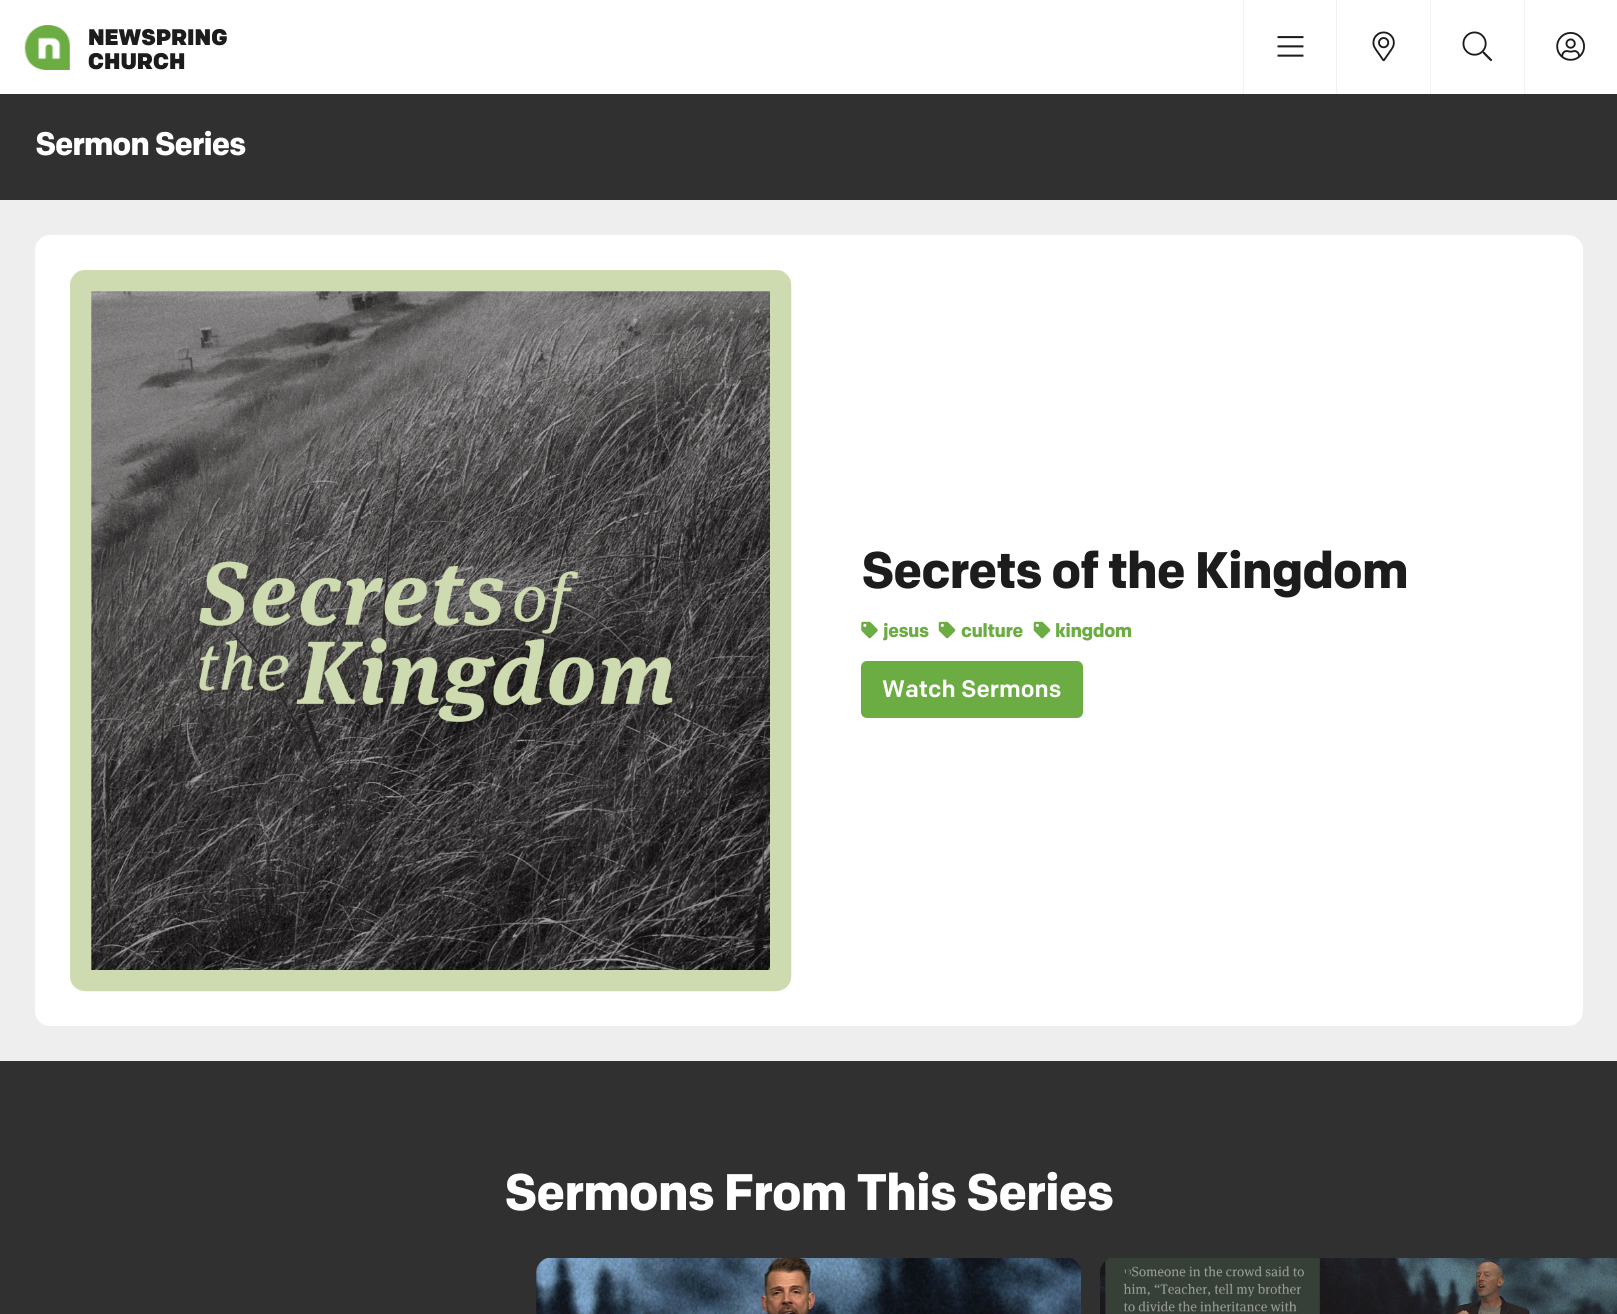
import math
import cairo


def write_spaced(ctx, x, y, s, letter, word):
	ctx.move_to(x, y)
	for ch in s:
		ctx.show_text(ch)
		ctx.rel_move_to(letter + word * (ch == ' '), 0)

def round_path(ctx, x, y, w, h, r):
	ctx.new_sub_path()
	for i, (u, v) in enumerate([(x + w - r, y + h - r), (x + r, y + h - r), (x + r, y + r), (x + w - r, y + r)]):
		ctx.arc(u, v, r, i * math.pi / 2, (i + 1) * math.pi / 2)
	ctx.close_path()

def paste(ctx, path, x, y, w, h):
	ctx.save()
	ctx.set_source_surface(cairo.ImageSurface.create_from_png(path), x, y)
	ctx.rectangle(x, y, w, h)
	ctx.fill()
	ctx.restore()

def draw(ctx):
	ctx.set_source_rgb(0.188, 0.188, 0.188)
	ctx.paint()
	ctx.set_source_rgb(1, 1, 1)
	ctx.rectangle(0, 0, 1617, 94)
	ctx.fill()
	paste(ctx, 'media/1.png', 24, 25, 46, 45)
	ctx.select_font_face('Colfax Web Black')
	ctx.set_font_size(22.5)
	ctx.set_source_rgb(0.11, 0.11, 0.11)
	ctx.move_to(88, 45)
	ctx.show_text('NEWSPRING')
	ctx.move_to(88, 69)
	ctx.show_text('CHURCH')
	ctx.set_source_rgb(0.949, 0.949, 0.949)
	ctx.rectangle(1243, 0, 1, 94)
	ctx.fill()
	paste(ctx, 'media/2.png', 1277, 36, 27, 21)
	ctx.rectangle(1336, 0, 1, 94)
	ctx.fill()
	paste(ctx, 'media/3.png', 1372, 31, 23, 31)
	ctx.rectangle(1430, 0, 1, 94)
	ctx.fill()
	paste(ctx, 'media/4.png', 1462, 31, 31, 31)
	ctx.rectangle(1524, 0, 1, 94)
	ctx.fill()
	paste(ctx, 'media/5.png', 1556, 32, 29, 29)
	ctx.select_font_face('Colfax Web', cairo.FONT_SLANT_NORMAL, cairo.FONT_WEIGHT_BOLD)
	ctx.set_font_size(32.5)
	ctx.set_source_rgb(1, 1, 1)
	write_spaced(ctx, 35, 155, 'Sermon Series', -1.25, 0)
	ctx.set_source_rgb(0.933, 0.933, 0.933)
	ctx.rectangle(0, 200, 1617, 861)
	ctx.fill()
	ctx.set_source_rgb(1, 1, 1)
	round_path(ctx, 35, 235, 1548, 791, 15)
	ctx.fill()
	paste(ctx, 'media/6.png', 70, 270, 722, 722)
	ctx.set_font_size(51.25)
	ctx.set_source_rgb(0.11, 0.11, 0.11)
	write_spaced(ctx, 861, 588, 'Secrets of the Kingdom', -1.25, 0)
	paste(ctx, 'media/7.png', 861, 621, 17, 18)
	ctx.set_font_size(19)
	ctx.set_source_rgb(0.42, 0.675, 0.263)
	write_spaced(ctx, 883, 637, 'jesus', -0.5, 0)
	paste(ctx, 'media/8.png', 938, 621, 18, 18)
	write_spaced(ctx, 961, 637, 'culture', -0.5, 0)
	paste(ctx, 'media/8.png', 1033, 621, 18, 18)
	write_spaced(ctx, 1055, 637, 'kingdom', -0.5, 0)
	round_path(ctx, 861, 661, 222, 57, 6)
	ctx.fill()
	ctx.select_font_face('Colfax Web Medium')
	ctx.set_font_size(23.75)
	ctx.set_source_rgb(1, 1, 1)
	ctx.move_to(882, 697)
	ctx.show_text('Watch Sermons')
	ctx.select_font_face('Colfax Web', cairo.FONT_SLANT_NORMAL, cairo.FONT_WEIGHT_BOLD)
	ctx.set_font_size(51.25)
	write_spaced(ctx, 504, 1210, 'Sermons From This Series', -1.25, 0)
	paste(ctx, 'media/9.png', 536, 1258, 545, 56)
	paste(ctx, 'media/10.png', 1100, 1258, 517, 56)


surface = cairo.ImageSurface(cairo.FORMAT_RGB24, 1617, 1314)
ctx = cairo.Context(surface)
options = cairo.FontOptions()
options.set_hint_metrics(cairo.HINT_METRICS_OFF)
options.set_hint_style(cairo.HINT_STYLE_NONE)
ctx.set_font_options(options)
ctx.set_miter_limit(4)
draw(ctx)
surface.write_to_png('image.png')
